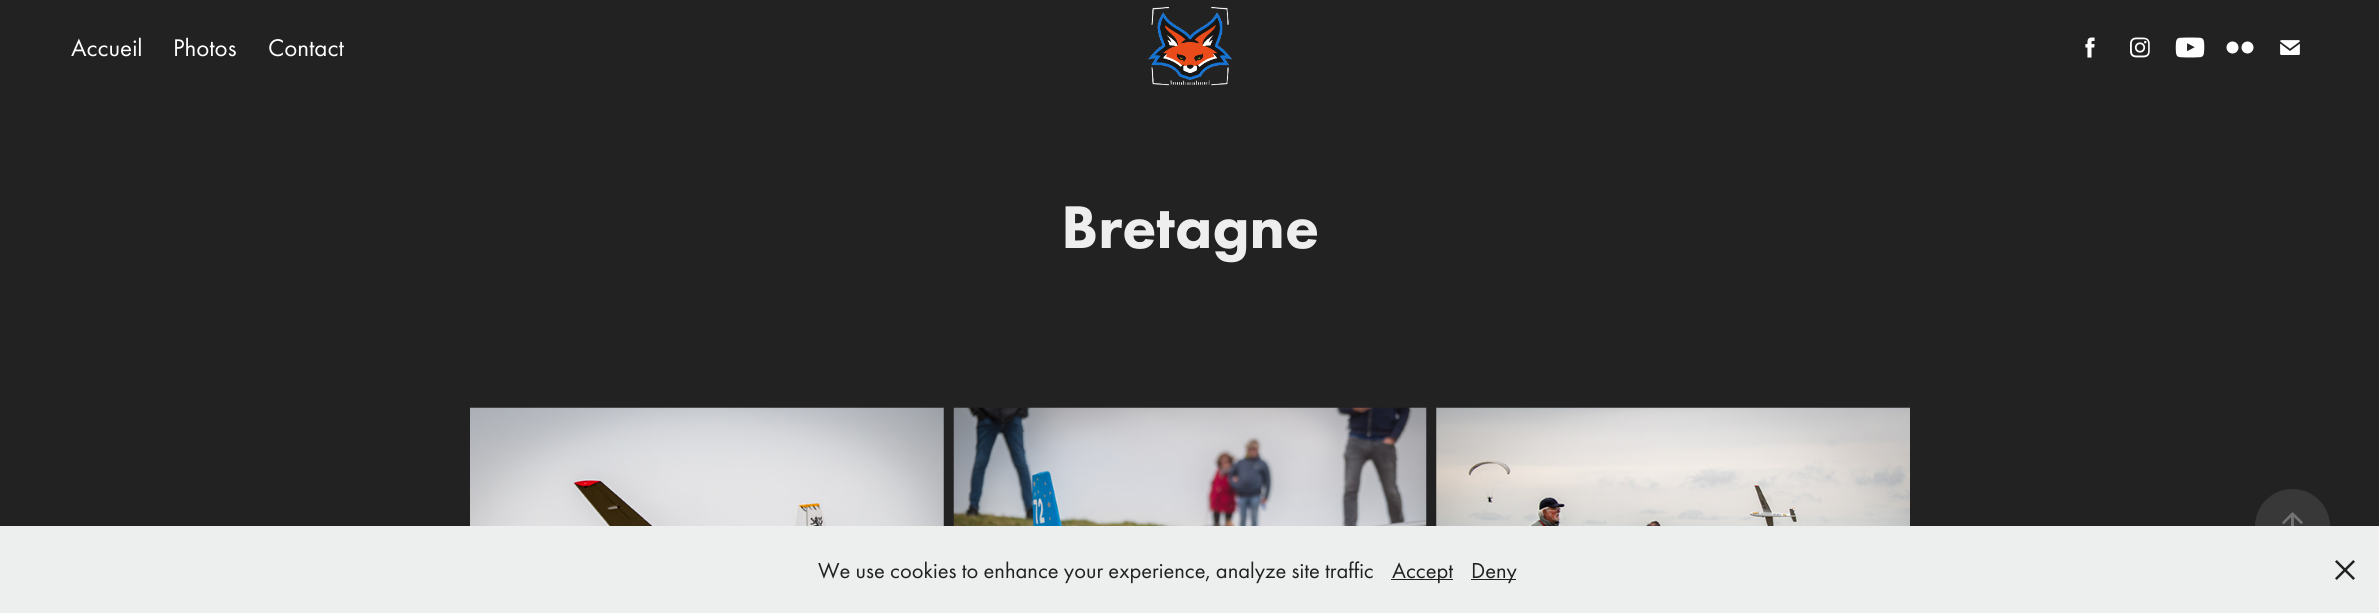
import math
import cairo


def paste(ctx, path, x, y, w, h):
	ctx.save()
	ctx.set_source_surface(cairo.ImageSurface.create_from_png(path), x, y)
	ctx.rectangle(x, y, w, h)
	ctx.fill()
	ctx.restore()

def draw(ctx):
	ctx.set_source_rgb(0.133, 0.133, 0.133)
	ctx.paint()
	ctx.select_font_face('Futura PT')
	ctx.set_font_size(25)
	ctx.set_source_rgb(1, 1, 1)
	for x, y, s in [
		(71, 56, 'Accueil'),
		(173, 56, 'Photos'),
		(268, 56, 'Contact'),
	]:
		ctx.move_to(x, y)
		ctx.show_text(s)
	paste(ctx, 'media/1.png', 1148, 6, 85, 80)
	paste(ctx, 'media/2.png', 2085, 37, 10, 21)
	paste(ctx, 'media/3.png', 2130, 37, 20, 21)
	paste(ctx, 'media/4.png', 2175, 37, 30, 21)
	ctx.arc(2232.5, 47.5, 6, 0, 2 * math.pi)
	ctx.fill()
	ctx.arc(2247.5, 47.5, 6, 0, 2 * math.pi)
	ctx.fill()
	paste(ctx, 'media/5.png', 2280, 40, 20, 15)
	ctx.select_font_face('Futura PT Black')
	ctx.set_font_size(62.5)
	ctx.set_source_rgb(0.933, 0.933, 0.933)
	ctx.move_to(1061, 248)
	ctx.show_text('Bretagne')
	paste(ctx, 'media/6.png', 470, 407, 474, 119)
	paste(ctx, 'media/7.png', 953, 407, 474, 119)
	paste(ctx, 'media/8.png', 1436, 407, 474, 119)
	ctx.set_source_rgb(0.22, 0.22, 0.22)
	ctx.arc(2292.5, 526.5, 37.5, 0, 2 * math.pi)
	ctx.fill()
	paste(ctx, 'media/9.png', 2282, 512, 21, 14)
	ctx.set_source_rgb(0.929, 0.933, 0.933)
	ctx.rectangle(0, 526, 2379, 87)
	ctx.fill()
	ctx.select_font_face('Futura PT')
	ctx.set_font_size(22.5)
	ctx.set_source_rgb(0.129, 0.129, 0.129)
	ctx.move_to(818, 578)
	ctx.show_text('We use cookies to enhance your experience, analyze site traffic')
	ctx.rectangle(1391, 579, 62, 1)
	ctx.fill()
	ctx.move_to(1392, 578)
	ctx.show_text('Accept')
	ctx.rectangle(1471, 579, 45, 1)
	ctx.fill()
	ctx.move_to(1471, 578)
	ctx.show_text('Deny')
	paste(ctx, 'media/10.png', 2335, 560, 20, 20)


surface = cairo.ImageSurface(cairo.FORMAT_RGB24, 2379, 613)
ctx = cairo.Context(surface)
options = cairo.FontOptions()
options.set_hint_metrics(cairo.HINT_METRICS_OFF)
options.set_hint_style(cairo.HINT_STYLE_NONE)
ctx.set_font_options(options)
ctx.set_miter_limit(4)
draw(ctx)
surface.write_to_png('image.png')
